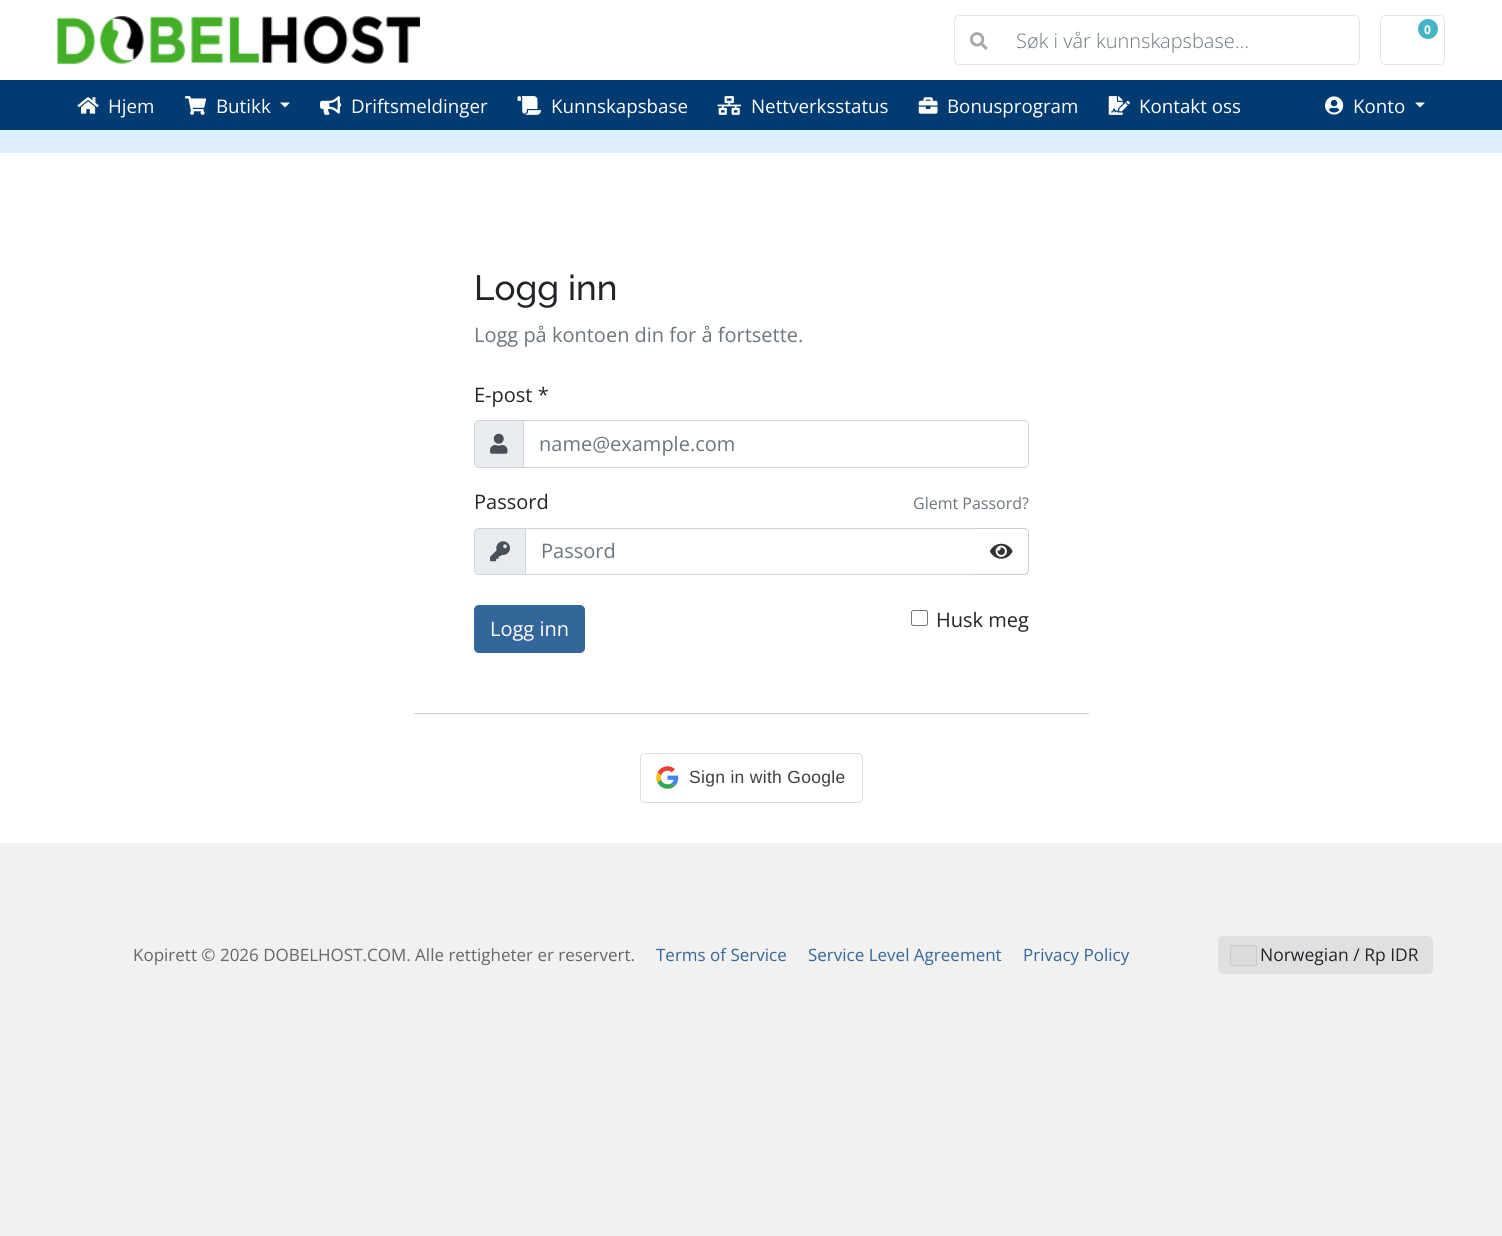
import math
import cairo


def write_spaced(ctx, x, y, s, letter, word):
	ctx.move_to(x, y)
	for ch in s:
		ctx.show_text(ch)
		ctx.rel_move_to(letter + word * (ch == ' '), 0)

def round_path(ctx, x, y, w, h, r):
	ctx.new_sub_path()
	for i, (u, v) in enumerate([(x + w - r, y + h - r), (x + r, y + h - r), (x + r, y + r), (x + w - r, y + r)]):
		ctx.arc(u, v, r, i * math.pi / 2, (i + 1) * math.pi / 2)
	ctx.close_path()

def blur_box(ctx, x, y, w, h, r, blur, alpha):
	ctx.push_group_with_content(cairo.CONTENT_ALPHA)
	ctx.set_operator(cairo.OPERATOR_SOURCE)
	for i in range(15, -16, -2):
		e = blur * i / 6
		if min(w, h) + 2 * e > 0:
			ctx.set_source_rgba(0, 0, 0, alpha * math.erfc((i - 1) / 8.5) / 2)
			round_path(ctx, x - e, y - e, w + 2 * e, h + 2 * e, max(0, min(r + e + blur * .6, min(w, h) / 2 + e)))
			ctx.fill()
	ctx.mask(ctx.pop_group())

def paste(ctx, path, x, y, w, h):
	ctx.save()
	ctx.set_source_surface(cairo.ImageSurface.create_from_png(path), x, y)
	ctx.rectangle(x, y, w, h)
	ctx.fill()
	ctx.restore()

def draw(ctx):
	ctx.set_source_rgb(0.945, 0.945, 0.945)
	ctx.paint()
	ctx.set_source_rgb(1, 1, 1)
	ctx.rectangle(0, 0, 1502, 80)
	ctx.fill()
	paste(ctx, 'media/1.png', 57, 16, 363, 48)
	round_path(ctx, 1380.5, 15.5, 64, 49, 4.5)
	ctx.set_source_rgb(0.898, 0.898, 0.898)
	ctx.set_line_width(1)
	ctx.stroke()
	ctx.set_source_rgb(0.271, 0.71, 0.776)
	ctx.arc(1428, 29, 10, 0, 2 * math.pi)
	ctx.fill()
	ctx.select_font_face('Open Sans', cairo.FONT_SLANT_NORMAL, cairo.FONT_WEIGHT_BOLD)
	ctx.set_font_size(12)
	ctx.set_source_rgb(1, 1, 1)
	ctx.move_to(1424, 34)
	ctx.show_text('0')
	round_path(ctx, 954.5, 15.5, 405, 49, 4.5)
	ctx.set_source_rgb(0.898, 0.898, 0.898)
	ctx.stroke()
	ctx.set_source_rgb(1, 1, 1)
	ctx.new_path()
	ctx.move_to(1001, 16)
	ctx.line_to(1354, 16)
	ctx.curve_to(1357, 16, 1359, 18, 1359, 21)
	ctx.line_to(1359, 59)
	ctx.curve_to(1359, 62, 1357, 64, 1354, 64)
	ctx.line_to(1001, 64)
	ctx.close_path()
	ctx.fill()
	ctx.new_path()
	ctx.move_to(960, 16)
	ctx.line_to(1003, 16)
	ctx.line_to(1003, 64)
	ctx.line_to(960, 64)
	ctx.curve_to(957, 64, 955, 62, 955, 59)
	ctx.line_to(955, 21)
	ctx.curve_to(955, 18, 957, 16, 960, 16)
	ctx.close_path()
	ctx.fill()
	paste(ctx, 'media/2.png', 970, 32, 18, 18)
	ctx.select_font_face('Open Sans Light')
	ctx.set_font_size(20)
	ctx.set_source_rgb(0.424, 0.459, 0.49)
	ctx.move_to(1016, 48)
	ctx.show_text('Søk i vår kunnskapsbase...')
	ctx.set_source_rgb(0.008, 0.231, 0.447)
	ctx.rectangle(0, 80, 1502, 50)
	ctx.fill()
	paste(ctx, 'media/3.png', 77, 97, 22, 17)
	ctx.select_font_face('Open Sans')
	ctx.set_font_size(18.75)
	ctx.set_source_rgb(1, 1, 1)
	ctx.move_to(108, 113)
	ctx.show_text('Hjem')
	paste(ctx, 'media/4.png', 185, 96, 22, 19)
	ctx.move_to(216, 113)
	ctx.show_text('Butikk')
	ctx.new_path()
	ctx.move_to(280, 102.5)
	ctx.line_to(290, 102.5)
	ctx.line_to(285, 107.5)
	ctx.close_path()
	ctx.fill()
	paste(ctx, 'media/5.png', 320, 96, 22, 19)
	ctx.move_to(351, 113)
	ctx.show_text('Driftsmeldinger')
	paste(ctx, 'media/6.png', 517, 96, 24, 19)
	ctx.move_to(551, 113)
	ctx.show_text('Kunnskapsbase')
	paste(ctx, 'media/7.png', 717, 96, 24, 19)
	ctx.move_to(751, 113)
	ctx.show_text('Nettverksstatus')
	paste(ctx, 'media/8.png', 918, 97, 20, 17)
	ctx.move_to(947, 113)
	ctx.show_text('Bonusprogram')
	paste(ctx, 'media/9.png', 1108, 96, 22, 19)
	ctx.move_to(1139, 113)
	ctx.show_text('Kontakt oss')
	paste(ctx, 'media/10.png', 1325, 96, 19, 19)
	ctx.move_to(1353, 113)
	ctx.show_text('Konto')
	ctx.new_path()
	ctx.move_to(1415, 102.5)
	ctx.line_to(1425, 102.5)
	ctx.line_to(1420, 107.5)
	ctx.close_path()
	ctx.fill()
	ctx.set_source_rgb(0.863, 0.933, 1)
	ctx.rectangle(0, 130, 1502, 23)
	ctx.fill()
	ctx.set_source_rgb(1, 1, 1)
	ctx.rectangle(0, 153, 1502, 690)
	ctx.fill()
	ctx.set_source_rgb(0.8, 0.8, 0.8)
	ctx.rectangle(414, 713, 675, 1)
	ctx.fill()
	ctx.select_font_face('Raleway Medium')
	ctx.set_font_size(35)
	ctx.set_source_rgb(0.129, 0.145, 0.161)
	ctx.move_to(474, 300)
	ctx.show_text('Logg inn')
	ctx.select_font_face('Open Sans')
	ctx.set_font_size(20)
	ctx.set_source_rgb(0.424, 0.459, 0.49)
	ctx.move_to(474, 342)
	ctx.show_text('Logg på kontoen din for å fortsette.')
	ctx.set_source_rgb(0.129, 0.145, 0.161)
	ctx.move_to(474, 402)
	ctx.show_text('E-post *')
	ctx.set_source_rgb(0.914, 0.925, 0.937)
	ctx.new_path()
	ctx.move_to(479, 420.5)
	ctx.line_to(523.5, 420.5)
	ctx.line_to(523.5, 467.5)
	ctx.line_to(479, 467.5)
	ctx.curve_to(476.5, 467.5, 474.5, 465.5, 474.5, 463)
	ctx.line_to(474.5, 425)
	ctx.curve_to(474.5, 422.5, 476.5, 420.5, 479, 420.5)
	ctx.close_path()
	ctx.fill_preserve()
	ctx.set_source_rgb(0.808, 0.831, 0.855)
	ctx.stroke()
	paste(ctx, 'media/11.png', 490, 433, 18, 21)
	ctx.new_path()
	ctx.move_to(523.5, 420.5)
	ctx.line_to(1024, 420.5)
	ctx.curve_to(1026.5, 420.5, 1028.5, 422.5, 1028.5, 425)
	ctx.line_to(1028.5, 463)
	ctx.curve_to(1028.5, 465.5, 1026.5, 467.5, 1024, 467.5)
	ctx.line_to(523.5, 467.5)
	ctx.close_path()
	ctx.stroke()
	ctx.set_source_rgb(0.424, 0.459, 0.49)
	ctx.move_to(539, 451)
	ctx.show_text('name@example.com')
	ctx.set_source_rgb(0.129, 0.145, 0.161)
	ctx.move_to(474, 509)
	ctx.show_text('Passord')
	ctx.set_font_size(16)
	ctx.set_source_rgb(0.424, 0.459, 0.49)
	ctx.move_to(913, 509)
	ctx.show_text('Glemt Passord?')
	ctx.set_source_rgb(0.914, 0.925, 0.937)
	ctx.new_path()
	ctx.move_to(479, 528.5)
	ctx.line_to(525.5, 528.5)
	ctx.line_to(525.5, 574.5)
	ctx.line_to(479, 574.5)
	ctx.curve_to(476.5, 574.5, 474.5, 572.5, 474.5, 570)
	ctx.line_to(474.5, 533)
	ctx.curve_to(474.5, 530.5, 476.5, 528.5, 479, 528.5)
	ctx.close_path()
	ctx.fill_preserve()
	ctx.set_source_rgb(0.808, 0.831, 0.855)
	ctx.stroke()
	paste(ctx, 'media/12.png', 490, 541, 20, 21)
	ctx.rectangle(525.5, 528.5, 450, 46)
	ctx.stroke()
	ctx.set_font_size(20)
	ctx.set_source_rgb(0.424, 0.459, 0.49)
	ctx.move_to(541, 558)
	ctx.show_text('Passord')
	ctx.set_source_rgb(1, 1, 1)
	ctx.new_path()
	ctx.move_to(975, 528)
	ctx.line_to(1024, 528)
	ctx.curve_to(1027, 528, 1029, 530, 1029, 533)
	ctx.line_to(1029, 570)
	ctx.curve_to(1029, 573, 1027, 575, 1024, 575)
	ctx.line_to(975, 575)
	ctx.close_path()
	ctx.fill()
	ctx.set_source_rgb(0.8, 0.8, 0.8)
	ctx.set_fill_rule(cairo.FILL_RULE_EVEN_ODD)
	ctx.new_path()
	ctx.move_to(975, 528)
	ctx.line_to(1024, 528)
	ctx.curve_to(1027, 528, 1029, 530, 1029, 532)
	ctx.line_to(1029, 570)
	ctx.curve_to(1029, 573, 1027, 575, 1024, 575)
	ctx.line_to(975, 575)
	ctx.close_path()
	ctx.move_to(975, 529)
	ctx.line_to(1024, 529)
	ctx.curve_to(1026, 529, 1028, 530, 1028, 532)
	ctx.line_to(1028, 570)
	ctx.curve_to(1028, 572, 1026, 574, 1024, 574)
	ctx.line_to(975, 574)
	ctx.close_path()
	ctx.fill()
	paste(ctx, 'media/13.png', 990, 543, 23, 16)
	ctx.set_source_rgb(0.2, 0.4, 0.6)
	round_path(ctx, 474.5, 605.5, 110, 47, 4.5)
	ctx.fill_preserve()
	ctx.stroke()
	ctx.set_source_rgb(1, 1, 1)
	ctx.move_to(490, 636)
	ctx.show_text('Logg inn')
	round_path(ctx, 911.5, 610.5, 16, 15, 2)
	ctx.set_source_rgb(0.463, 0.463, 0.463)
	ctx.stroke()
	ctx.set_source_rgb(0.129, 0.145, 0.161)
	ctx.move_to(936, 627)
	ctx.show_text('Husk meg')
	round_path(ctx, 640.5, 753.5, 222, 49, 4.5)
	ctx.set_source_rgb(0.855, 0.863, 0.878)
	ctx.stroke()
	paste(ctx, 'media/14.png', 656, 766, 23, 23)
	ctx.select_font_face('Liberation Sans')
	ctx.set_font_size(17.5)
	ctx.set_source_rgb(0.235, 0.251, 0.263)
	write_spaced(ctx, 689, 783, 'Sign in with Google', 0.3, 0)
	ctx.select_font_face('Open Sans')
	ctx.set_font_size(17)
	ctx.set_source_rgb(0.4, 0.4, 0.4)
	ctx.move_to(133, 961)
	ctx.show_text('Kopirett © 2026 DOBELHOST.COM. Alle rettigheter er reservert.')
	ctx.set_source_rgb(0.2, 0.4, 0.6)
	for x, y, s in [
		(656, 961, 'Terms of Service'),
		(808, 961, 'Service Level Agreement'),
		(1023, 961, 'Privacy Policy'),
	]:
		ctx.move_to(x, y)
		ctx.show_text(s)
	ctx.set_source_rgb(0.878, 0.878, 0.878)
	round_path(ctx, 1218, 936, 215, 38, 5)
	ctx.fill()
	ctx.set_source_rgb(0.533, 0.533, 0.533)
	blur_box(ctx, 1231, 946, 25, 19, 0, 0.5, 1)
	ctx.set_source_rgb(0.859, 0.859, 0.859)
	ctx.rectangle(1231, 946, 25, 19)
	ctx.fill()
	ctx.set_font_size(17.5)
	ctx.set_source_rgb(0.129, 0.145, 0.161)
	ctx.move_to(1260, 961)
	ctx.show_text('Norwegian / Rp IDR')


surface = cairo.ImageSurface(cairo.FORMAT_RGB24, 1502, 1236)
ctx = cairo.Context(surface)
options = cairo.FontOptions()
options.set_hint_metrics(cairo.HINT_METRICS_OFF)
options.set_hint_style(cairo.HINT_STYLE_NONE)
ctx.set_font_options(options)
ctx.set_miter_limit(4)
draw(ctx)
surface.write_to_png('image.png')
